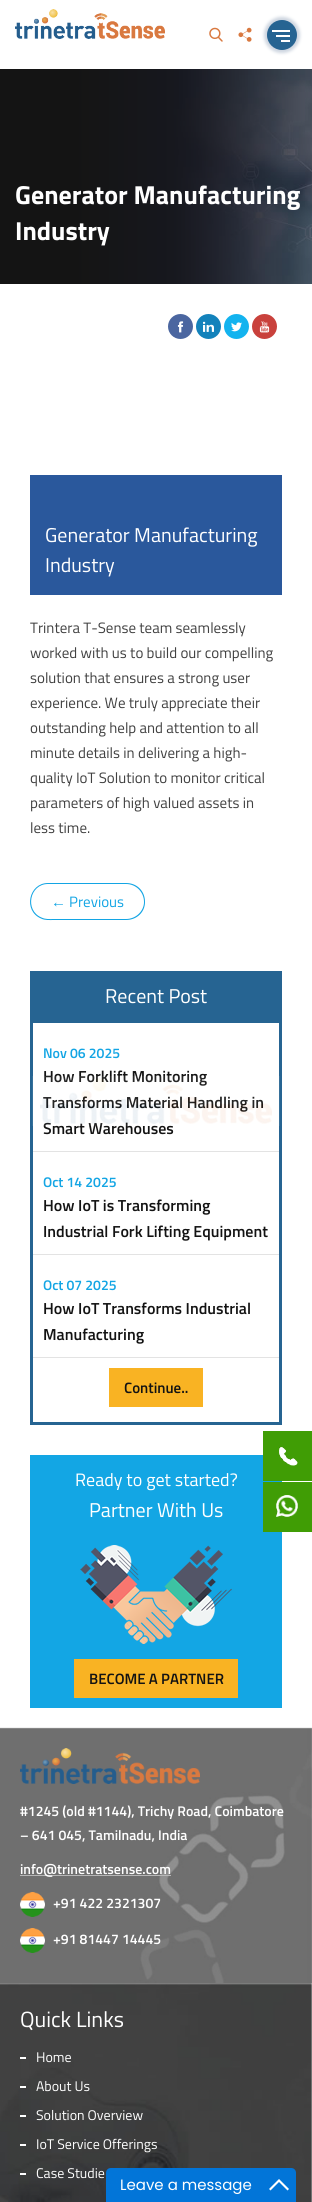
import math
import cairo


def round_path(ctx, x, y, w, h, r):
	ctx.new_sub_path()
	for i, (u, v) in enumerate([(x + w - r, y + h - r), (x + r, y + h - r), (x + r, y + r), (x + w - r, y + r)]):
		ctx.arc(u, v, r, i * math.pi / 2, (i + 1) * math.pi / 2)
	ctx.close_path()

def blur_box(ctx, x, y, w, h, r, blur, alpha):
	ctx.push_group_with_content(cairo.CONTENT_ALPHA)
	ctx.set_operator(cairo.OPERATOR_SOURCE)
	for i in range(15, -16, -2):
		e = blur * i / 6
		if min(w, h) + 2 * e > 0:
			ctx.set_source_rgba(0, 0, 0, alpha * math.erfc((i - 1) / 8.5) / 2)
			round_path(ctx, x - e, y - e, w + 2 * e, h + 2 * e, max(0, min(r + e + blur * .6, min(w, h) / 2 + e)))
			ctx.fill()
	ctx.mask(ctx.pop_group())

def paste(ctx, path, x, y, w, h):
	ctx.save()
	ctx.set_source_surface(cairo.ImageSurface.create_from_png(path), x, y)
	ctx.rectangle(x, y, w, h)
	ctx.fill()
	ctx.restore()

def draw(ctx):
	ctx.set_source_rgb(1, 1, 1)
	ctx.paint()
	paste(ctx, 'media/1.png', 15, 9, 150, 30)
	paste(ctx, 'media/2.png', 209, 27, 14, 15)
	paste(ctx, 'media/3.png', 238, 27, 14, 15)
	ctx.set_source_rgb(0.706, 0.753, 0.816)
	blur_box(ctx, 264, 17, 36, 36, 18, 1.5, 0.65)
	ctx.set_source_rgb(0.149, 0.392, 0.573)
	ctx.arc(282, 35, 15, 0, 2 * math.pi)
	ctx.fill()
	ctx.set_source_rgb(1, 1, 1)
	ctx.rectangle(276, 35, 14, 2)
	ctx.rectangle(272, 30, 18, 2)
	ctx.rectangle(281, 40, 9, 2)
	ctx.fill()
	paste(ctx, 'media/4.png', 0, 69, 312, 215)
	ctx.select_font_face('Titillium Web', cairo.FONT_SLANT_NORMAL, cairo.FONT_WEIGHT_BOLD)
	ctx.set_font_size(26)
	ctx.move_to(15, 204)
	ctx.show_text('Generator Manufacturing')
	ctx.move_to(15, 240)
	ctx.show_text('Industry')
	ctx.set_source_rgb(0.165, 0.345, 0.612)
	ctx.rectangle(30, 475, 252, 120)
	ctx.fill()
	ctx.set_source_rgb(0.294, 0.4, 0.627)
	ctx.arc(180.5, 326.5, 12.5, 0, 2 * math.pi)
	ctx.fill()
	paste(ctx, 'media/5.png', 177, 321, 7, 12)
	ctx.set_source_rgb(0.078, 0.51, 0.733)
	ctx.arc(208.5, 326.5, 12.5, 0, 2 * math.pi)
	ctx.fill()
	paste(ctx, 'media/6.png', 203, 321, 11, 11)
	ctx.set_source_rgb(0.078, 0.702, 0.937)
	ctx.arc(236.5, 326.5, 12.5, 0, 2 * math.pi)
	ctx.fill()
	paste(ctx, 'media/7.png', 231, 322, 11, 10)
	ctx.set_source_rgb(0.788, 0.255, 0.235)
	ctx.arc(264.5, 326.5, 12.5, 0, 2 * math.pi)
	ctx.fill()
	paste(ctx, 'media/8.png', 259, 321, 11, 12)
	ctx.select_font_face('Titillium Web')
	ctx.set_font_size(20)
	ctx.set_source_rgb(1, 1, 1)
	ctx.move_to(45, 542)
	ctx.show_text('Generator Manufacturing')
	ctx.move_to(45, 572)
	ctx.show_text('Industry')
	ctx.set_font_size(15)
	ctx.set_source_rgb(0.255, 0.255, 0.255)
	for x, y, s in [
		(30, 633, 'Trintera T-Sense team seamlessly'),
		(30, 658, 'worked with us to build our compelling'),
		(30, 683, 'solution that ensures a strong user'),
		(30, 708, 'experience. We truly appreciate their'),
		(30, 733, 'outstanding help and attention to all'),
		(30, 758, 'minute details in delivering a high-'),
		(30, 783, 'quality IoT Solution to monitor critical'),
		(30, 808, 'parameters of high valued assets in'),
		(30, 833, 'less time.'),
	]:
		ctx.move_to(x, y)
		ctx.show_text(s)
	ctx.set_source_rgb(0.078, 0.647, 0.894)
	ctx.set_fill_rule(cairo.FILL_RULE_EVEN_ODD)
	ctx.new_path()
	ctx.move_to(48, 883)
	ctx.line_to(66, 883)
	ctx.line_to(66, 920)
	ctx.line_to(54, 920)
	ctx.curve_to(49.5, 920, 45, 920.5, 41, 918.5)
	ctx.curve_to(23, 911, 28.5, 883, 48, 883)
	ctx.close_path()
	ctx.move_to(48, 884)
	ctx.line_to(66, 884)
	ctx.line_to(66, 919)
	ctx.line_to(54, 919)
	ctx.curve_to(49.5, 919, 45.5, 919.5, 41.5, 917.5)
	ctx.curve_to(24.5, 910.5, 29.5, 884, 48, 884)
	ctx.close_path()
	ctx.fill()
	ctx.select_font_face('Liberation Sans')
	ctx.move_to(51, 907)
	ctx.show_text('←')
	ctx.new_path()
	ctx.move_to(66, 883)
	ctx.line_to(126, 883)
	ctx.curve_to(137, 883, 145, 891, 145, 902)
	ctx.curve_to(145, 912, 137, 920, 126, 920)
	ctx.line_to(66, 920)
	ctx.close_path()
	ctx.move_to(66, 884)
	ctx.line_to(126, 884)
	ctx.curve_to(136, 884, 144, 892, 144, 902)
	ctx.curve_to(144, 911, 136, 919, 126, 919)
	ctx.line_to(66, 919)
	ctx.close_path()
	ctx.fill()
	ctx.select_font_face('Titillium Web')
	ctx.move_to(69, 907)
	ctx.show_text('Previous')
	ctx.set_source_rgb(0.149, 0.392, 0.573)
	ctx.rectangle(30, 971, 252, 454)
	ctx.fill()
	ctx.set_font_size(20)
	ctx.set_source_rgb(1, 1, 1)
	ctx.move_to(105, 1003)
	ctx.show_text('Recent Post')
	ctx.rectangle(33, 1023, 246, 399)
	ctx.fill()
	ctx.set_source_rgb(0.89, 0.89, 0.89)
	ctx.rectangle(33, 1151, 246, 1)
	ctx.fill()
	ctx.select_font_face('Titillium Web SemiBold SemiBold')
	ctx.set_font_size(14)
	ctx.set_source_rgb(0.078, 0.647, 0.894)
	ctx.move_to(43, 1058)
	ctx.show_text('Nov 06 2025')
	ctx.set_font_size(16)
	ctx.set_source_rgb(0.078, 0.078, 0.078)
	for x, y, s in [
		(43, 1082, 'How Forklift Monitoring'),
		(43, 1108, 'Transforms Material Handling in'),
		(43, 1134, 'Smart Warehouses'),
	]:
		ctx.move_to(x, y)
		ctx.show_text(s)
	ctx.set_source_rgb(0.89, 0.89, 0.89)
	ctx.rectangle(33, 1254, 246, 1)
	ctx.fill()
	ctx.set_font_size(14)
	ctx.set_source_rgb(0.078, 0.647, 0.894)
	ctx.move_to(43, 1187)
	ctx.show_text('Oct 14 2025')
	ctx.set_font_size(16)
	ctx.set_source_rgb(0.078, 0.078, 0.078)
	ctx.move_to(43, 1211)
	ctx.show_text('How IoT is Transforming')
	ctx.move_to(43, 1237)
	ctx.show_text('Industrial Fork Lifting Equipment')
	ctx.set_source_rgb(0.89, 0.89, 0.89)
	ctx.rectangle(33, 1357, 246, 1)
	ctx.fill()
	ctx.set_font_size(14)
	ctx.set_source_rgb(0.078, 0.647, 0.894)
	ctx.move_to(43, 1290)
	ctx.show_text('Oct 07 2025')
	ctx.set_font_size(16)
	ctx.set_source_rgb(0.078, 0.078, 0.078)
	ctx.move_to(43, 1314)
	ctx.show_text('How IoT Transforms Industrial')
	ctx.move_to(43, 1340)
	ctx.show_text('Manufacturing')
	ctx.set_source_rgb(0.976, 0.702, 0.137)
	ctx.rectangle(109, 1368, 94, 39)
	ctx.fill()
	ctx.set_font_size(15)
	ctx.set_source_rgb(0.078, 0.078, 0.078)
	ctx.move_to(124, 1393)
	ctx.show_text('Continue..')
	ctx.set_source_rgb(0.078, 0.651, 0.894)
	ctx.rectangle(30, 1455, 252, 253)
	ctx.fill()
	ctx.select_font_face('Titillium Web')
	ctx.set_font_size(18)
	ctx.set_source_rgb(1, 1, 1)
	ctx.move_to(75, 1486)
	ctx.show_text('Ready to get started?')
	ctx.set_font_size(20)
	ctx.move_to(89, 1517)
	ctx.show_text('Partner With Us')
	paste(ctx, 'media/9.png', 80, 1545, 152, 99)
	ctx.set_source_rgb(0.976, 0.702, 0.137)
	ctx.rectangle(74, 1659, 164, 39)
	ctx.fill()
	ctx.select_font_face('Titillium Web SemiBold SemiBold')
	ctx.set_font_size(15)
	ctx.set_source_rgb(0.078, 0.078, 0.078)
	ctx.move_to(89, 1684)
	ctx.show_text('BECOME A PARTNER')
	paste(ctx, 'media/10.png', 32, 1076, 248, 50)
	paste(ctx, 'media/11.png', 0, 1727, 312, 257)
	paste(ctx, 'media/12.png', 20, 1748, 180, 36)
	ctx.set_font_size(14)
	ctx.set_source_rgb(1, 1, 1)
	ctx.move_to(20, 1816)
	ctx.show_text('#1245 (old #1144), Trichy Road, Coimbatore')
	ctx.move_to(20, 1840)
	ctx.show_text('– 641 045, Tamilnadu, India')
	ctx.set_source_rgb(0.718, 0.718, 0.718)
	ctx.rectangle(20, 1875, 151, 1)
	ctx.fill()
	ctx.set_source_rgb(1, 1, 1)
	ctx.move_to(20, 1874)
	ctx.show_text('info@trinetratsense.com')
	paste(ctx, 'media/13.png', 20, 1892, 25, 25)
	ctx.move_to(53, 1908)
	ctx.show_text('+91 422 2321307')
	paste(ctx, 'media/13.png', 20, 1928, 25, 25)
	ctx.move_to(53, 1944)
	ctx.show_text('+91 81447 14445')
	paste(ctx, 'media/14.png', 0, 1983, 312, 219)
	ctx.select_font_face('Titillium Web')
	ctx.set_font_size(22)
	ctx.move_to(20, 2027)
	ctx.show_text('Quick Links')
	ctx.rectangle(20, 2057, 6, 2)
	ctx.fill()
	ctx.set_font_size(14)
	ctx.move_to(36, 2062)
	ctx.show_text('Home')
	ctx.rectangle(20, 2086, 6, 2)
	ctx.fill()
	ctx.move_to(36, 2091)
	ctx.show_text('About Us')
	ctx.rectangle(20, 2115, 6, 2)
	ctx.fill()
	ctx.move_to(36, 2120)
	ctx.show_text('Solution Overview')
	ctx.rectangle(20, 2144, 6, 2)
	ctx.fill()
	ctx.move_to(36, 2149)
	ctx.show_text('IoT Service Offerings')
	ctx.rectangle(20, 2173, 6, 2)
	ctx.fill()
	ctx.move_to(36, 2178)
	ctx.show_text('Case Studie')
	ctx.set_source_rgb(0.251, 0.616, 0.02)
	ctx.rectangle(263, 1431, 49, 50)
	ctx.fill()
	paste(ctx, 'media/15.png', 279, 1447, 19, 19)
	ctx.rectangle(263, 1482, 49, 50)
	ctx.fill()
	paste(ctx, 'media/16.png', 276, 1495, 22, 22)
	ctx.set_source_rgb(0.008, 0.459, 0.847)
	ctx.new_path()
	ctx.move_to(111, 2168)
	ctx.line_to(291, 2168)
	ctx.curve_to(294, 2168, 296, 2170, 296, 2173)
	ctx.line_to(296, 2202)
	ctx.line_to(106, 2202)
	ctx.line_to(106, 2173)
	ctx.curve_to(106, 2170, 108, 2168, 111, 2168)
	ctx.close_path()
	ctx.fill()
	ctx.select_font_face('Poppins')
	ctx.set_font_size(15)
	ctx.set_source_rgb(1, 1, 1)
	ctx.move_to(120, 2190)
	ctx.show_text('Leave a message')
	ctx.set_fill_rule(cairo.FILL_RULE_WINDING)
	ctx.new_path()
	ctx.move_to(279, 2179)
	ctx.line_to(289, 2189)
	ctx.line_to(287.5, 2190.5)
	ctx.line_to(279, 2182)
	ctx.line_to(270.5, 2190.5)
	ctx.line_to(269, 2189)
	ctx.close_path()
	ctx.fill()


surface = cairo.ImageSurface(cairo.FORMAT_RGB24, 312, 2202)
ctx = cairo.Context(surface)
options = cairo.FontOptions()
options.set_hint_metrics(cairo.HINT_METRICS_OFF)
options.set_hint_style(cairo.HINT_STYLE_NONE)
ctx.set_font_options(options)
ctx.set_miter_limit(4)
draw(ctx)
surface.write_to_png('image.png')
